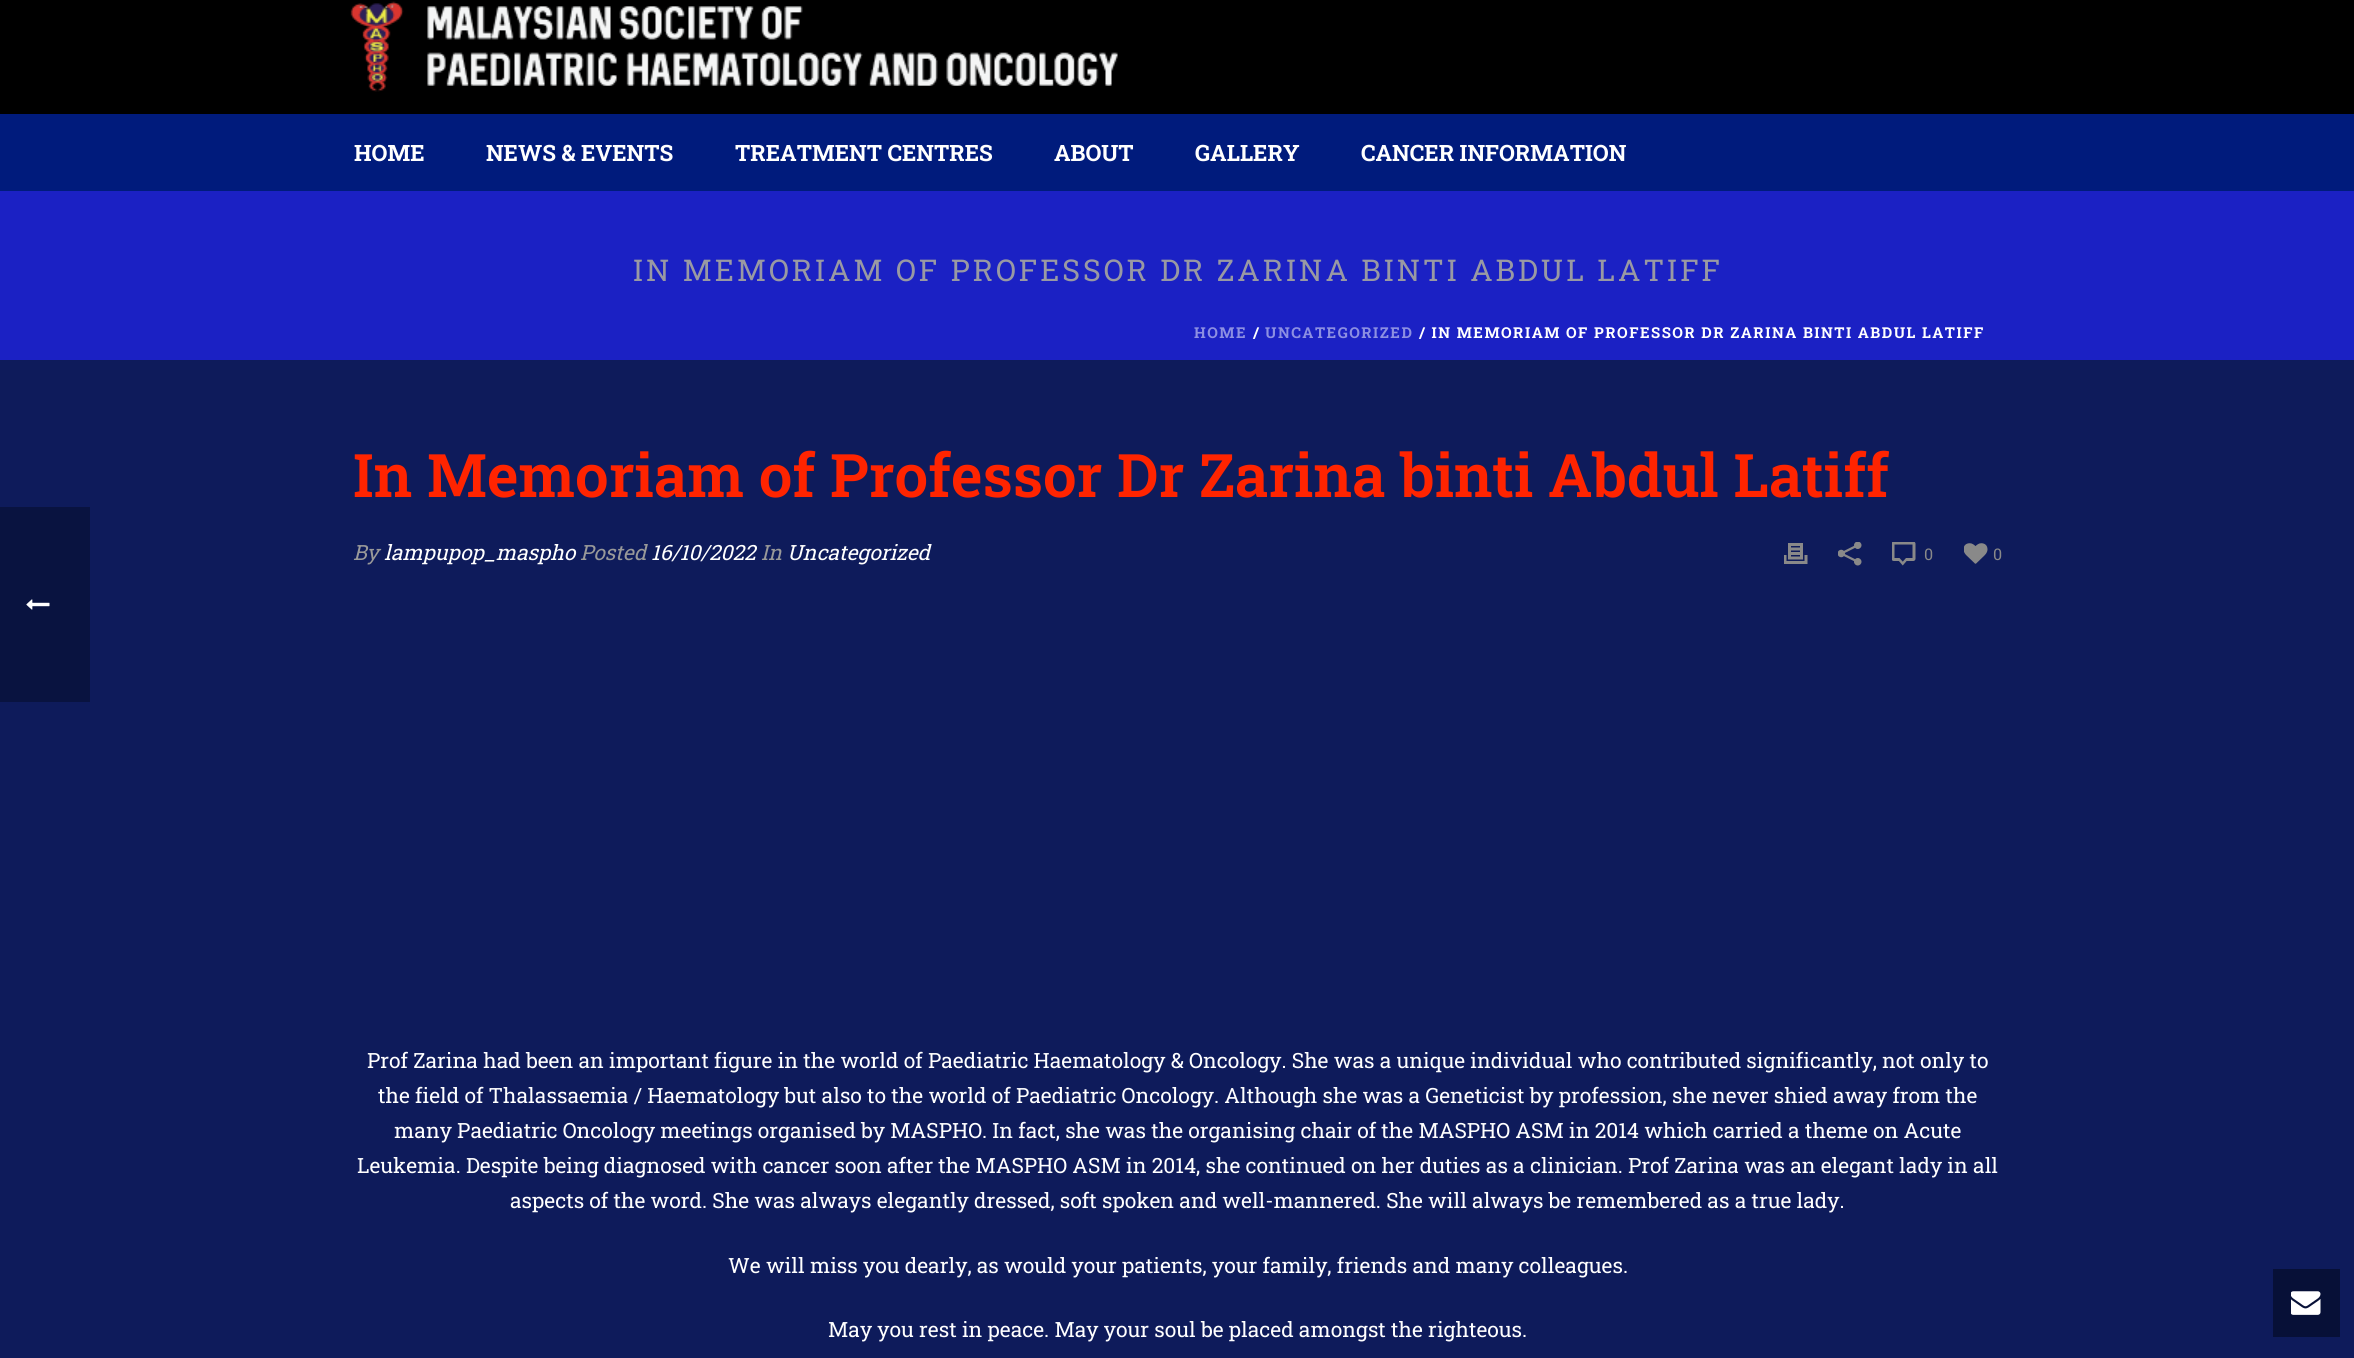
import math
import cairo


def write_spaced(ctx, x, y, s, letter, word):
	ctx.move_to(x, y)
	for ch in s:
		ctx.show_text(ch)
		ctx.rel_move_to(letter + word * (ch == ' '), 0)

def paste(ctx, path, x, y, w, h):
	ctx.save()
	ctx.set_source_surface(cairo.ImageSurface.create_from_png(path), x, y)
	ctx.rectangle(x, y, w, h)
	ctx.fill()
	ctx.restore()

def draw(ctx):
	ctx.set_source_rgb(0.055, 0.106, 0.357)
	ctx.paint()
	ctx.set_source_rgb(0.039, 0.075, 0.251)
	ctx.rectangle(0, 507, 90, 195)
	ctx.fill()
	paste(ctx, 'media/1.png', 26, 599, 24, 11)
	ctx.set_source_rgb(0.106, 0.129, 0.769)
	ctx.rectangle(0, 191, 2354, 169)
	ctx.fill()
	ctx.set_source_rgb(0, 0, 0)
	ctx.rectangle(0, 0, 2354, 114)
	ctx.fill()
	paste(ctx, 'media/2.png', 350, 1, 768, 91)
	ctx.set_source_rgb(0, 0.106, 0.486)
	ctx.rectangle(0, 114, 2354, 77)
	ctx.fill()
	ctx.select_font_face('Roboto Slab', cairo.FONT_SLANT_NORMAL, cairo.FONT_WEIGHT_BOLD)
	ctx.set_font_size(22.5)
	ctx.set_source_rgb(1, 1, 1)
	for x, y, s in [
		(354, 161, 'HOME'),
		(486, 161, 'NEWS & EVENTS'),
		(735, 161, 'TREATMENT CENTRES'),
		(1054, 161, 'ABOUT'),
		(1195, 161, 'GALLERY'),
		(1361, 161, 'CANCER INFORMATION'),
	]:
		ctx.move_to(x, y)
		ctx.show_text(s)
	ctx.select_font_face('Roboto Slab')
	ctx.set_font_size(30)
	ctx.set_source_rgb(0.6, 0.6, 0.639)
	write_spaced(ctx, 633, 281, 'IN MEMORIAM OF PROFESSOR DR ZARINA BINTI ABDUL LATIFF', 3, 0)
	ctx.select_font_face('Roboto Slab', cairo.FONT_SLANT_NORMAL, cairo.FONT_WEIGHT_BOLD)
	ctx.set_font_size(15)
	ctx.set_source_rgb(0.553, 0.565, 0.886)
	write_spaced(ctx, 1194, 338, 'HOME', 1.5, 0)
	ctx.set_source_rgb(1, 1, 1)
	write_spaced(ctx, 1253, 338, '/', 1.5, 0)
	ctx.set_source_rgb(0.553, 0.565, 0.886)
	write_spaced(ctx, 1265, 338, 'UNCATEGORIZED', 1.5, 0)
	ctx.set_source_rgb(1, 1, 1)
	write_spaced(ctx, 1419, 338, '/ IN MEMORIAM OF PROFESSOR DR ZARINA BINTI ABDUL LATIFF', 1.5, 0)
	ctx.select_font_face('Roboto Slab SemiBold')
	ctx.set_font_size(60)
	ctx.set_source_rgb(1, 0.141, 0)
	ctx.move_to(353, 497)
	ctx.show_text('In Memoriam of Professor Dr Zarina binti Abdul Latiff')
	ctx.select_font_face('Roboto Slab', cairo.FONT_SLANT_ITALIC)
	ctx.set_font_size(21)
	ctx.set_source_rgb(0.6, 0.6, 0.6)
	ctx.move_to(353, 560)
	ctx.show_text('By')
	ctx.set_source_rgb(1, 1, 1)
	ctx.move_to(384, 560)
	ctx.show_text('lampupop_maspho')
	ctx.set_source_rgb(0.6, 0.6, 0.6)
	ctx.move_to(580, 560)
	ctx.show_text('Posted')
	ctx.set_source_rgb(1, 1, 1)
	ctx.move_to(651, 560)
	ctx.show_text('16/10/2022')
	ctx.set_source_rgb(0.6, 0.6, 0.6)
	ctx.move_to(761, 560)
	ctx.show_text('In')
	ctx.set_source_rgb(1, 1, 1)
	ctx.move_to(787, 560)
	ctx.show_text('Uncategorized')
	paste(ctx, 'media/3.png', 1784, 543, 24, 21)
	paste(ctx, 'media/4.png', 1838, 542, 24, 24)
	paste(ctx, 'media/5.png', 1892, 542, 24, 24)
	ctx.select_font_face('Roboto Slab')
	ctx.set_font_size(16)
	ctx.set_source_rgb(0.537, 0.537, 0.537)
	ctx.move_to(1924, 560)
	ctx.show_text('0')
	paste(ctx, 'media/6.png', 1964, 543, 24, 21)
	ctx.move_to(1993, 560)
	ctx.show_text('0')
	ctx.set_font_size(21)
	ctx.set_source_rgb(1, 1, 1)
	for x, y, s in [
		(367, 1068, 'Prof Zarina had been an important figure in the world of Paediatric Haematology & Oncology. She was a unique individual who contributed significantly, not only to'),
		(378, 1103, 'the field of Thalassaemia / Haematology but also to the world of Paediatric Oncology. Although she was a Geneticist by profession, she never shied away from the'),
		(394, 1138, 'many Paediatric Oncology meetings organised by MASPHO. In fact, she was the organising chair of the MASPHO ASM in 2014 which carried a theme on Acute'),
		(357, 1173, 'Leukemia. Despite being diagnosed with cancer soon after the MASPHO ASM in 2014, she continued on her duties as a clinician. Prof Zarina was an elegant lady in all'),
		(510, 1208, 'aspects of the word. She was always elegantly dressed, soft spoken and well-mannered. She will always be remembered as a true lady.'),
		(728, 1273, 'We will miss you dearly, as would your patients, your family, friends and many colleagues.'),
		(828, 1337, 'May you rest in peace. May your soul be placed amongst the righteous.'),
	]:
		ctx.move_to(x, y)
		ctx.show_text(s)
	ctx.set_source_rgb(0.031, 0.063, 0.216)
	ctx.rectangle(2273, 1269, 67, 68)
	ctx.fill()
	paste(ctx, 'media/7.png', 2291, 1291, 30, 24)


surface = cairo.ImageSurface(cairo.FORMAT_RGB24, 2354, 1358)
ctx = cairo.Context(surface)
options = cairo.FontOptions()
options.set_hint_metrics(cairo.HINT_METRICS_OFF)
options.set_hint_style(cairo.HINT_STYLE_NONE)
ctx.set_font_options(options)
ctx.set_miter_limit(4)
draw(ctx)
surface.write_to_png('image.png')
